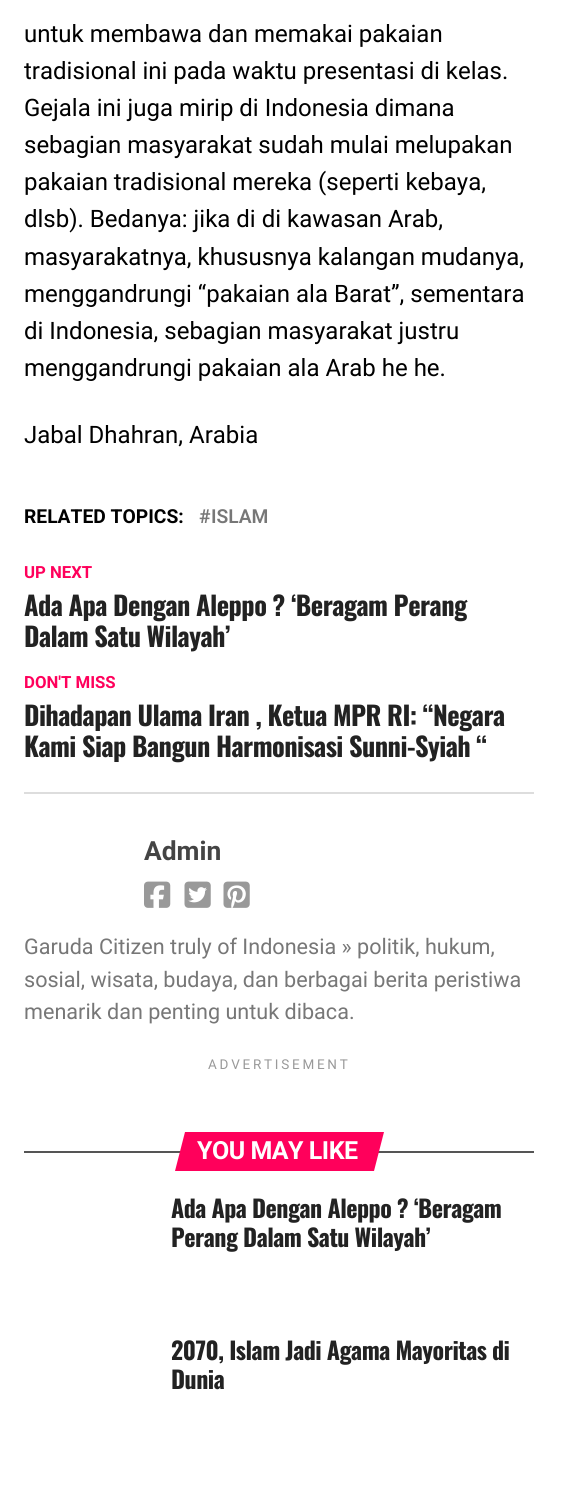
import math
import cairo


def write_spaced(ctx, x, y, s, letter, word):
	ctx.move_to(x, y)
	for ch in s:
		ctx.show_text(ch)
		ctx.rel_move_to(letter + word * (ch == ' '), 0)

def paste(ctx, path, x, y, w, h):
	ctx.save()
	ctx.set_source_surface(cairo.ImageSurface.create_from_png(path), x, y)
	ctx.rectangle(x, y, w, h)
	ctx.fill()
	ctx.restore()

def draw(ctx):
	ctx.set_source_rgb(1, 1, 1)
	ctx.paint()
	ctx.select_font_face('Roboto')
	ctx.set_font_size(24)
	ctx.set_source_rgb(0, 0, 0)
	for x, y, s in [
		(24, 42, 'untuk membawa dan memakai pakaian'),
		(24, 79, 'tradisional ini pada waktu presentasi di kelas.'),
		(24, 116, 'Gejala ini juga mirip di Indonesia dimana'),
		(24, 153, 'sebagian masyarakat sudah mulai melupakan'),
		(24, 190, 'pakaian tradisional mereka (seperti kebaya,'),
		(24, 227, 'dlsb). Bedanya: jika di di kawasan Arab,'),
		(24, 265, 'masyarakatnya, khususnya kalangan mudanya,'),
		(24, 302, 'menggandrungi “pakaian ala Barat”, sementara'),
		(24, 339, 'di Indonesia, sebagian masyarakat justru'),
		(24, 376, 'menggandrungi pakaian ala Arab he he.'),
		(24, 443, 'Jabal Dhahran, Arabia'),
	]:
		ctx.move_to(x, y)
		ctx.show_text(s)
	ctx.select_font_face('Roboto', cairo.FONT_SLANT_NORMAL, cairo.FONT_WEIGHT_BOLD)
	ctx.set_font_size(19.25)
	ctx.move_to(24, 523)
	ctx.show_text('RELATED TOPICS:')
	ctx.select_font_face('Roboto SemiBold')
	ctx.set_source_rgb(0.467, 0.467, 0.467)
	ctx.move_to(199, 523)
	ctx.show_text('#')
	ctx.move_to(211, 523)
	ctx.show_text('ISLAM')
	ctx.set_source_rgb(0.867, 0.867, 0.867)
	ctx.rectangle(24, 792, 510, 2)
	ctx.fill()
	ctx.select_font_face('Roboto', cairo.FONT_SLANT_NORMAL, cairo.FONT_WEIGHT_BOLD)
	ctx.set_font_size(16.75)
	ctx.set_source_rgb(1, 0, 0.357)
	ctx.move_to(24, 578)
	ctx.show_text('UP NEXT')
	ctx.select_font_face('Oswald', cairo.FONT_SLANT_NORMAL, cairo.FONT_WEIGHT_BOLD)
	ctx.set_font_size(26.4)
	ctx.set_source_rgb(0.133, 0.133, 0.133)
	write_spaced(ctx, 24, 616, 'Ada Apa Dengan Aleppo ? ‘Beragam Perang', -0.55, 0)
	write_spaced(ctx, 24, 647, 'Dalam Satu Wilayah’', -0.55, 0)
	ctx.select_font_face('Roboto', cairo.FONT_SLANT_NORMAL, cairo.FONT_WEIGHT_BOLD)
	ctx.set_font_size(16.75)
	ctx.set_source_rgb(1, 0, 0.357)
	ctx.move_to(24, 688)
	ctx.show_text('DON\'T MISS')
	ctx.select_font_face('Oswald', cairo.FONT_SLANT_NORMAL, cairo.FONT_WEIGHT_BOLD)
	ctx.set_font_size(26.4)
	ctx.set_source_rgb(0.133, 0.133, 0.133)
	write_spaced(ctx, 24, 726, 'Dihadapan Ulama Iran , Ketua MPR RI: “Negara', -0.55, 0)
	write_spaced(ctx, 24, 757, 'Kami Siap Bangun Harmonisasi Sunni-Syiah “', -0.55, 0)
	ctx.select_font_face('Roboto', cairo.FONT_SLANT_NORMAL, cairo.FONT_WEIGHT_BOLD)
	ctx.set_source_rgb(0.267, 0.267, 0.267)
	ctx.move_to(144, 860)
	ctx.show_text('Admin')
	paste(ctx, 'media/1.png', 144, 881, 27, 27)
	paste(ctx, 'media/2.png', 184, 881, 27, 27)
	paste(ctx, 'media/3.png', 223, 881, 27, 27)
	ctx.select_font_face('Roboto')
	ctx.set_font_size(21.6)
	ctx.set_source_rgb(0.467, 0.467, 0.467)
	for x, y, s in [
		(24, 954, 'Garuda Citizen truly of Indonesia » politik, hukum,'),
		(24, 987, 'sosial, wisata, budaya, dan berbagai berita peristiwa'),
		(24, 1019, 'menarik dan penting untuk dibaca.'),
	]:
		ctx.move_to(x, y)
		ctx.show_text(s)
	ctx.set_font_size(13.5)
	ctx.set_source_rgb(0.6, 0.6, 0.6)
	write_spaced(ctx, 208, 1069, 'ADVERTISEMENT', 2.75, 0)
	ctx.set_source_rgb(0.333, 0.333, 0.333)
	ctx.rectangle(24, 1151, 510, 2)
	ctx.fill()
	ctx.set_source_rgb(1, 0, 0.357)
	ctx.new_path()
	ctx.move_to(185, 1132)
	ctx.line_to(384, 1132)
	ctx.line_to(374, 1171)
	ctx.line_to(175, 1171)
	ctx.close_path()
	ctx.fill()
	ctx.select_font_face('Roboto', cairo.FONT_SLANT_NORMAL, cairo.FONT_WEIGHT_BOLD)
	ctx.set_font_size(25)
	ctx.set_source_rgb(1, 1, 1)
	write_spaced(ctx, 197, 1159, 'YOU MAY LIKE', -0.5, 0)
	ctx.select_font_face('Oswald', cairo.FONT_SLANT_NORMAL, cairo.FONT_WEIGHT_BOLD)
	ctx.set_font_size(24)
	ctx.set_source_rgb(0.133, 0.133, 0.133)
	for x, y, s in [
		(171, 1218, 'Ada Apa Dengan Aleppo ? ‘Beragam'),
		(171, 1247, 'Perang Dalam Satu Wilayah’'),
		(171, 1360, '2070, Islam Jadi Agama Mayoritas di'),
		(171, 1389, 'Dunia'),
	]:
		write_spaced(ctx, x, y, s, -0.5, 0)


surface = cairo.ImageSurface(cairo.FORMAT_RGB24, 586, 1488)
ctx = cairo.Context(surface)
options = cairo.FontOptions()
options.set_hint_metrics(cairo.HINT_METRICS_OFF)
options.set_hint_style(cairo.HINT_STYLE_NONE)
ctx.set_font_options(options)
ctx.set_miter_limit(4)
draw(ctx)
surface.write_to_png('image.png')
